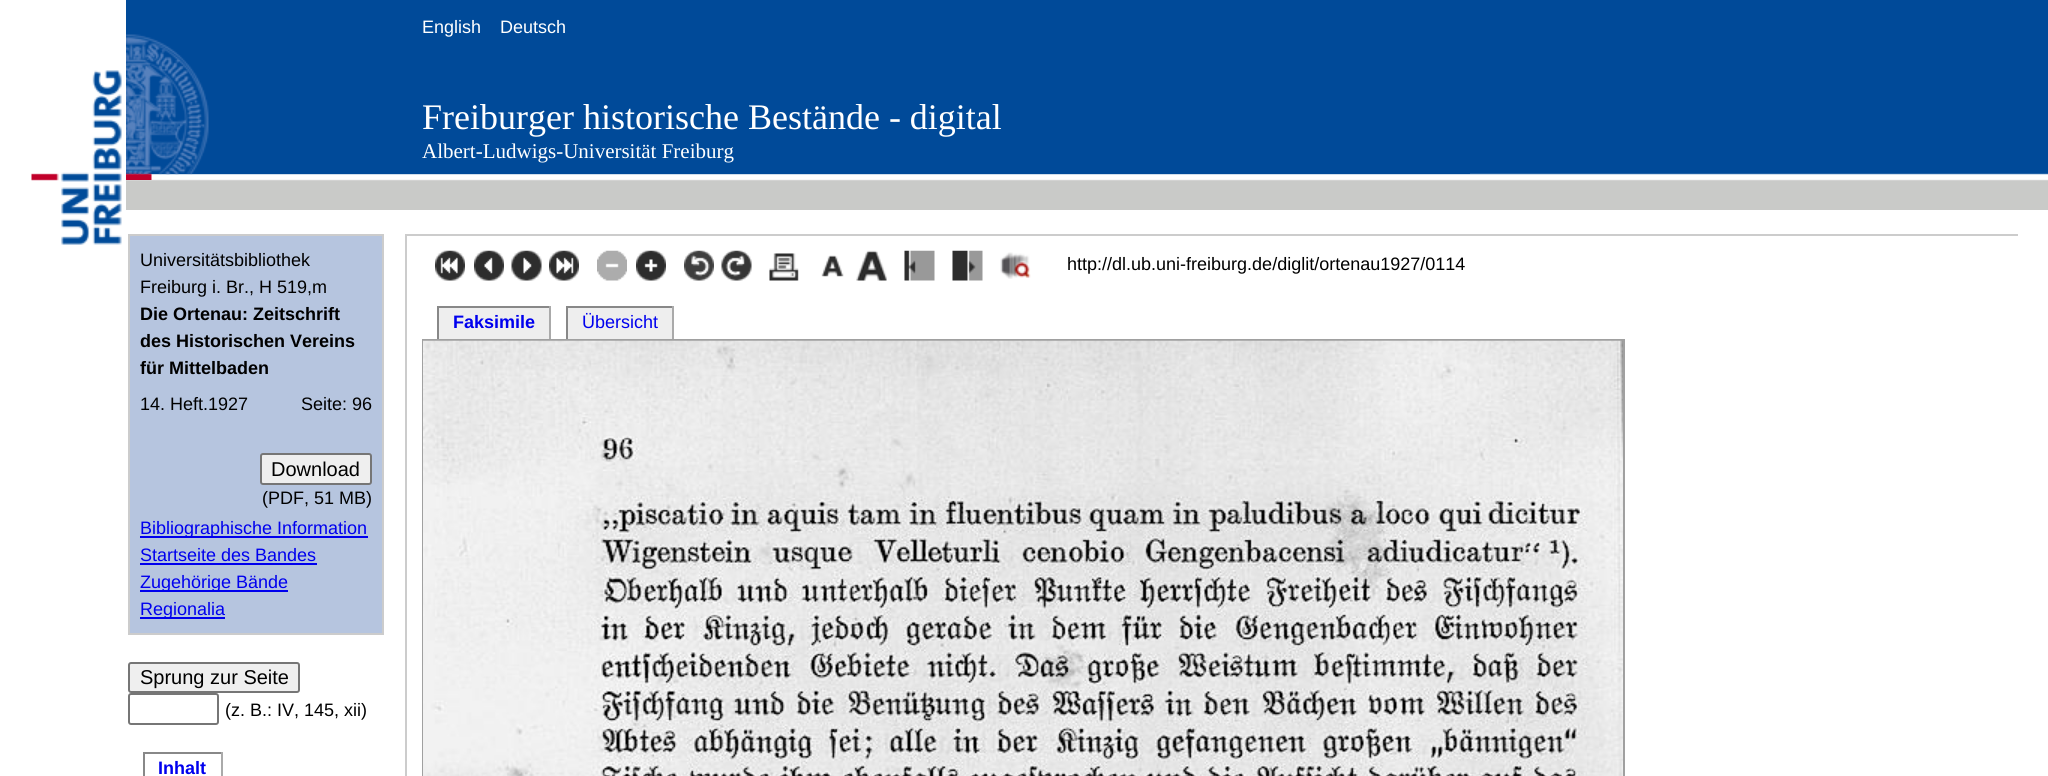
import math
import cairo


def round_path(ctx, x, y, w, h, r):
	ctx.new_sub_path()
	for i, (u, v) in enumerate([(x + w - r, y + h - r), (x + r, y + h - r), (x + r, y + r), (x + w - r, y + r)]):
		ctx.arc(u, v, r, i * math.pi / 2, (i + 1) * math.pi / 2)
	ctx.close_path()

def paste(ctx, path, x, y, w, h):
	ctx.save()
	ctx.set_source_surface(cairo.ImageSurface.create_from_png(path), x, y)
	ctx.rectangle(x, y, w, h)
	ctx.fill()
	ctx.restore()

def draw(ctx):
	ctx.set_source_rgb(1, 1, 1)
	ctx.paint()
	paste(ctx, 'media/1.png', 126, 0, 1922, 210)
	ctx.set_source_rgb(0, 0.29, 0.6)
	ctx.rectangle(126, 173, 1344, 1)
	ctx.fill()
	paste(ctx, 'media/2.png', 31, 70, 91, 175)
	paste(ctx, 'media/3.png', 126, 34, 83, 146)
	ctx.select_font_face('Liberation Sans')
	ctx.set_font_size(18)
	ctx.set_source_rgb(1, 1, 1)
	ctx.move_to(422, 33)
	ctx.show_text('English')
	ctx.move_to(500, 33)
	ctx.show_text('Deutsch')
	ctx.select_font_face('Liberation Serif')
	ctx.set_font_size(36)
	ctx.move_to(422, 129)
	ctx.show_text('Freiburger historische Bestände - digital')
	ctx.set_font_size(21)
	ctx.move_to(422, 158)
	ctx.show_text('Albert-Ludwigs-Universität Freiburg')
	ctx.set_source_rgb(0.714, 0.773, 0.875)
	ctx.rectangle(129, 235, 254, 399)
	ctx.fill_preserve()
	ctx.set_source_rgb(0.8, 0.8, 0.8)
	ctx.stroke()
	ctx.select_font_face('Liberation Sans')
	ctx.set_font_size(18)
	ctx.set_source_rgb(0, 0, 0)
	ctx.move_to(140, 266)
	ctx.show_text('Universitätsbibliothek')
	ctx.move_to(140, 293)
	ctx.show_text('Freiburg i. Br., H 519,m')
	ctx.select_font_face('Liberation Sans', cairo.FONT_SLANT_NORMAL, cairo.FONT_WEIGHT_BOLD)
	for x, y, s in [
		(140, 320, 'Die Ortenau: Zeitschrift'),
		(140, 347, 'des Historischen Vereins'),
		(140, 374, 'für Mittelbaden'),
	]:
		ctx.move_to(x, y)
		ctx.show_text(s)
	ctx.select_font_face('Liberation Sans')
	ctx.move_to(140, 410)
	ctx.show_text('14. Heft.1927')
	ctx.move_to(301, 410)
	ctx.show_text('Seite: 96')
	ctx.set_source_rgb(0.937, 0.937, 0.937)
	round_path(ctx, 261, 454, 110, 30, 2)
	ctx.fill_preserve()
	ctx.set_source_rgb(0.463, 0.463, 0.463)
	ctx.stroke()
	ctx.set_font_size(20)
	ctx.set_source_rgb(0, 0, 0)
	ctx.move_to(271, 476)
	ctx.show_text('Download')
	ctx.set_font_size(18)
	ctx.move_to(262, 504)
	ctx.show_text('(PDF, 51 MB)')
	ctx.set_source_rgb(0, 0, 0.933)
	ctx.rectangle(140, 536, 228, 2)
	ctx.fill()
	ctx.move_to(140, 534)
	ctx.show_text('Bibliographische Information')
	ctx.move_to(140, 561)
	ctx.show_text('Startseite des Bandes')
	ctx.rectangle(140, 563, 177, 2)
	ctx.fill()
	ctx.rectangle(140, 590, 148, 2)
	ctx.fill()
	ctx.move_to(140, 588)
	ctx.show_text('Zugehörige Bände')
	ctx.rectangle(140, 617, 85, 2)
	ctx.fill()
	ctx.move_to(140, 615)
	ctx.show_text('Regionalia')
	ctx.set_source_rgb(0.937, 0.937, 0.937)
	round_path(ctx, 129, 663, 170, 29, 2)
	ctx.fill_preserve()
	ctx.set_source_rgb(0.463, 0.463, 0.463)
	ctx.stroke()
	ctx.set_font_size(20)
	ctx.set_source_rgb(0, 0, 0)
	ctx.move_to(140, 684)
	ctx.show_text('Sprung zur Seite')
	round_path(ctx, 129, 694, 89, 30, 2)
	ctx.set_source_rgb(0.463, 0.463, 0.463)
	ctx.stroke()
	ctx.set_font_size(18)
	ctx.set_source_rgb(0, 0, 0)
	ctx.move_to(225, 716)
	ctx.show_text('(z. B.: IV, 145, xii)')
	ctx.set_source_rgb(0.533, 0.533, 0.533)
	ctx.rectangle(143, 752, 79, 2)
	ctx.fill()
	ctx.set_source_rgb(0.667, 0.667, 0.667)
	ctx.rectangle(221, 752, 2, 24)
	ctx.fill()
	ctx.set_source_rgb(0.533, 0.533, 0.533)
	ctx.rectangle(143, 752, 2, 24)
	ctx.fill()
	ctx.select_font_face('Liberation Sans', cairo.FONT_SLANT_NORMAL, cairo.FONT_WEIGHT_BOLD)
	ctx.set_source_rgb(0, 0, 0.933)
	ctx.move_to(158, 774)
	ctx.show_text('Inhalt')
	ctx.set_source_rgb(0.8, 0.8, 0.8)
	ctx.rectangle(405, 234, 1613, 2)
	ctx.fill()
	ctx.rectangle(405, 234, 2, 542)
	ctx.fill()
	paste(ctx, 'media/4.png', 435, 250, 30, 31)
	paste(ctx, 'media/5.png', 474, 250, 30, 31)
	paste(ctx, 'media/6.png', 511, 250, 31, 31)
	paste(ctx, 'media/7.png', 549, 250, 30, 31)
	paste(ctx, 'media/8.png', 597, 250, 30, 31)
	paste(ctx, 'media/9.png', 636, 250, 30, 31)
	paste(ctx, 'media/10.png', 684, 250, 30, 31)
	paste(ctx, 'media/11.png', 721, 250, 31, 31)
	paste(ctx, 'media/12.png', 769, 253, 30, 28)
	paste(ctx, 'media/13.png', 821, 255, 23, 22)
	paste(ctx, 'media/14.png', 856, 250, 31, 31)
	paste(ctx, 'media/15.png', 904, 250, 31, 31)
	paste(ctx, 'media/16.png', 952, 250, 31, 31)
	paste(ctx, 'media/17.png', 1000, 252, 31, 27)
	ctx.select_font_face('Liberation Sans')
	ctx.set_source_rgb(0, 0, 0)
	ctx.move_to(1067, 270)
	ctx.show_text('http://dl.ub.uni-freiburg.de/diglit/ortenau1927/0114')
	ctx.set_source_rgb(0.933, 0.933, 0.933)
	ctx.rectangle(439, 308, 110, 31)
	ctx.fill()
	ctx.set_source_rgb(0.533, 0.533, 0.533)
	ctx.rectangle(437, 306, 114, 2)
	ctx.fill()
	ctx.set_source_rgb(0.667, 0.667, 0.667)
	ctx.rectangle(549, 306, 2, 33)
	ctx.fill()
	ctx.set_source_rgb(0.533, 0.533, 0.533)
	ctx.rectangle(437, 306, 2, 33)
	ctx.fill()
	ctx.select_font_face('Liberation Sans', cairo.FONT_SLANT_NORMAL, cairo.FONT_WEIGHT_BOLD)
	ctx.set_source_rgb(0, 0, 0.933)
	ctx.move_to(453, 328)
	ctx.show_text('Faksimile')
	ctx.set_source_rgb(0.933, 0.933, 0.933)
	ctx.rectangle(568, 308, 104, 31)
	ctx.fill()
	ctx.set_source_rgb(0.533, 0.533, 0.533)
	ctx.rectangle(566, 306, 108, 2)
	ctx.fill()
	ctx.set_source_rgb(0.667, 0.667, 0.667)
	ctx.rectangle(672, 306, 2, 33)
	ctx.fill()
	ctx.set_source_rgb(0.533, 0.533, 0.533)
	ctx.rectangle(566, 306, 2, 33)
	ctx.fill()
	ctx.select_font_face('Liberation Sans')
	ctx.set_source_rgb(0, 0, 0.933)
	ctx.move_to(582, 328)
	ctx.show_text('Übersicht')
	ctx.rectangle(423, 340, 1201, 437)
	ctx.set_source_rgb(0.627, 0.627, 0.627)
	ctx.stroke()
	paste(ctx, 'media/18.png', 423, 340, 1200, 436)


surface = cairo.ImageSurface(cairo.FORMAT_RGB24, 2048, 776)
ctx = cairo.Context(surface)
options = cairo.FontOptions()
options.set_hint_metrics(cairo.HINT_METRICS_OFF)
options.set_hint_style(cairo.HINT_STYLE_NONE)
ctx.set_font_options(options)
ctx.set_miter_limit(4)
draw(ctx)
surface.write_to_png('image.png')
